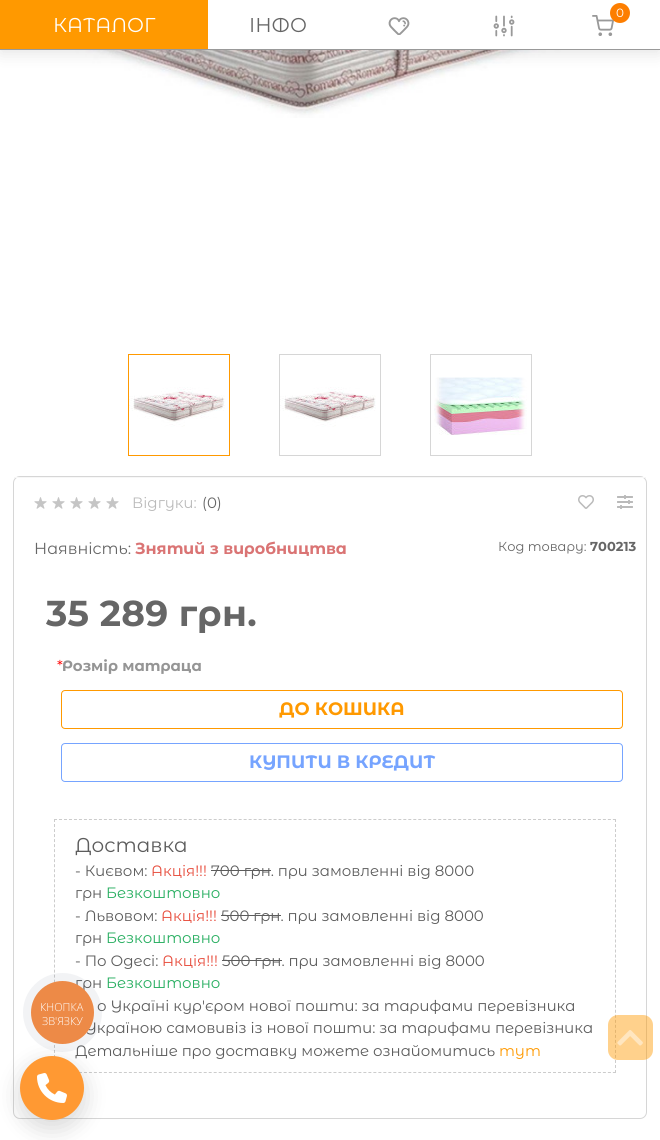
import math
import cairo


def write_spaced(ctx, x, y, s, letter, word):
	ctx.move_to(x, y)
	for ch in s:
		ctx.show_text(ch)
		ctx.rel_move_to(letter + word * (ch == ' '), 0)

def round_path(ctx, x, y, w, h, r):
	ctx.new_sub_path()
	for i, (u, v) in enumerate([(x + w - r, y + h - r), (x + r, y + h - r), (x + r, y + r), (x + w - r, y + r)]):
		ctx.arc(u, v, r, i * math.pi / 2, (i + 1) * math.pi / 2)
	ctx.close_path()

def blur_box(ctx, x, y, w, h, r, blur, alpha):
	ctx.push_group_with_content(cairo.CONTENT_ALPHA)
	ctx.set_operator(cairo.OPERATOR_SOURCE)
	for i in range(15, -16, -2):
		e = blur * i / 6
		if min(w, h) + 2 * e > 0:
			ctx.set_source_rgba(0, 0, 0, alpha * math.erfc((i - 1) / 8.5) / 2)
			round_path(ctx, x - e, y - e, w + 2 * e, h + 2 * e, max(0, min(r + e + blur * .6, min(w, h) / 2 + e)))
			ctx.fill()
	ctx.mask(ctx.pop_group())

def paste(ctx, path, x, y, w, h):
	ctx.save()
	ctx.set_source_surface(cairo.ImageSurface.create_from_png(path), x, y)
	ctx.rectangle(x, y, w, h)
	ctx.fill()
	ctx.restore()

def draw(ctx):
	ctx.set_source_rgb(1, 1, 1)
	ctx.paint()
	paste(ctx, 'media/4.png', 52, 50, 551, 68)
	ctx.set_source_rgb(0, 0, 0)
	blur_box(ctx, 0, 4, 660, 50, 0, 7.5, 0.1)
	ctx.set_source_rgb(1, 1, 1)
	ctx.rectangle(208, 0, 452, 49)
	ctx.fill()
	ctx.set_source_rgb(0.6, 0.6, 0.6)
	ctx.rectangle(0, 49, 660, 1)
	ctx.fill()
	paste(ctx, 'media/1.png', 592, 15, 22, 21)
	ctx.set_source_rgb(0.992, 0.494, 0)
	ctx.arc(620, 13, 10, 0, 2 * math.pi)
	ctx.fill()
	ctx.select_font_face('Montserrat Alternates')
	ctx.set_font_size(12)
	ctx.set_source_rgb(1, 1, 1)
	ctx.move_to(616, 17)
	ctx.show_text('0')
	ctx.set_source_rgb(1, 0.6, 0)
	ctx.rectangle(0, 0, 208, 49)
	ctx.fill()
	ctx.set_font_size(20)
	ctx.set_source_rgb(1, 1, 1)
	ctx.move_to(53, 32)
	ctx.show_text('КАТАЛОГ')
	ctx.set_source_rgb(0.4, 0.4, 0.4)
	ctx.move_to(249, 32)
	ctx.show_text('ІНФО')
	paste(ctx, 'media/2.png', 388, 17, 22, 18)
	paste(ctx, 'media/3.png', 493, 15, 22, 22)
	ctx.rectangle(128.5, 354.5, 101, 101)
	ctx.set_source_rgb(1, 0.6, 0)
	ctx.set_line_width(1)
	ctx.stroke()
	paste(ctx, 'media/5.png', 129, 387, 96, 40)
	ctx.rectangle(279.5, 354.5, 101, 101)
	ctx.set_source_rgb(0.839, 0.839, 0.839)
	ctx.stroke()
	paste(ctx, 'media/5.png', 280, 387, 96, 40)
	ctx.rectangle(430.5, 354.5, 101, 101)
	ctx.stroke()
	paste(ctx, 'media/6.png', 434, 377, 93, 58)
	round_path(ctx, 13.5, 476.5, 633, 642, 6.5)
	ctx.stroke()
	ctx.set_source_rgb(0.965, 0.965, 0.965)
	ctx.rectangle(14, 477, 632, 1)
	ctx.fill()
	paste(ctx, 'media/7.png', 34, 497, 13, 12)
	paste(ctx, 'media/7.png', 52, 497, 13, 12)
	paste(ctx, 'media/7.png', 70, 497, 13, 12)
	paste(ctx, 'media/7.png', 88, 497, 13, 12)
	paste(ctx, 'media/7.png', 106, 497, 13, 12)
	ctx.set_font_size(15)
	ctx.set_source_rgb(0.729, 0.729, 0.729)
	ctx.move_to(132, 508)
	ctx.show_text('Відгуки:')
	ctx.set_source_rgb(0.4, 0.4, 0.4)
	ctx.move_to(202, 508)
	ctx.show_text('(0)')
	paste(ctx, 'media/8.png', 578, 495, 16, 14)
	paste(ctx, 'media/9.png', 617, 495, 16, 14)
	ctx.set_font_size(16)
	ctx.move_to(34, 554)
	ctx.show_text('Наявність:')
	ctx.select_font_face('Montserrat Alternates', cairo.FONT_SLANT_NORMAL, cairo.FONT_WEIGHT_BOLD)
	ctx.set_source_rgb(0.855, 0.455, 0.455)
	ctx.move_to(135, 554)
	ctx.show_text('Знятий з виробництва')
	ctx.select_font_face('Montserrat Alternates')
	ctx.set_font_size(13)
	ctx.set_source_rgb(0.4, 0.4, 0.4)
	ctx.move_to(498, 551)
	ctx.show_text('Код товару:')
	ctx.select_font_face('Montserrat Alternates', cairo.FONT_SLANT_NORMAL, cairo.FONT_WEIGHT_BOLD)
	ctx.move_to(590, 551)
	ctx.show_text('700213')
	ctx.set_font_size(36)
	write_spaced(ctx, 46, 626, '35 289 грн.', 0.25, 0)
	ctx.select_font_face('Montserrat Alternates')
	ctx.set_font_size(15)
	ctx.set_source_rgb(1, 0, 0)
	ctx.move_to(57, 671)
	ctx.show_text('*')
	ctx.select_font_face('Montserrat Alternates', cairo.FONT_SLANT_NORMAL, cairo.FONT_WEIGHT_BOLD)
	ctx.set_source_rgb(0.584, 0.584, 0.584)
	ctx.move_to(62, 671)
	ctx.show_text('Розмір матраца')
	round_path(ctx, 61.5, 690.5, 561, 38, 3.5)
	ctx.set_source_rgb(1, 0.6, 0)
	ctx.stroke()
	ctx.set_font_size(18)
	ctx.move_to(279, 715)
	ctx.show_text('ДО КОШИКА')
	round_path(ctx, 61.5, 743.5, 561, 38, 3.5)
	ctx.set_source_rgb(0.463, 0.643, 1)
	ctx.stroke()
	ctx.move_to(249, 768)
	ctx.show_text('КУПИТИ В КРЕДИТ')
	ctx.new_path()
	ctx.move_to(54, 819.5)
	ctx.line_to(616, 819.5)
	ctx.set_source_rgb(0.8, 0.8, 0.8)
	ctx.set_dash([3, 1.99])
	ctx.stroke()
	ctx.new_path()
	ctx.move_to(615.5, 819)
	ctx.line_to(615.5, 1073)
	ctx.set_dash([3, 2.02])
	ctx.stroke()
	ctx.new_path()
	ctx.move_to(54, 1072.5)
	ctx.line_to(616, 1072.5)
	ctx.set_dash([3, 1.99])
	ctx.stroke()
	ctx.new_path()
	ctx.move_to(54.5, 819)
	ctx.line_to(54.5, 1073)
	ctx.set_dash([3, 2.02])
	ctx.stroke()
	ctx.select_font_face('Montserrat Alternates')
	ctx.set_font_size(20)
	ctx.set_source_rgb(0.361, 0.361, 0.361)
	ctx.move_to(75, 852)
	ctx.show_text('Доставка')
	ctx.set_font_size(15)
	ctx.move_to(75, 876)
	ctx.show_text('- Києвом:')
	ctx.set_source_rgb(0.906, 0.298, 0.235)
	ctx.move_to(151, 876)
	ctx.show_text('Акція!!!')
	ctx.set_source_rgb(0.361, 0.361, 0.361)
	ctx.move_to(211, 876)
	ctx.show_text('700 грн. при замовленні від 8000')
	ctx.rectangle(211, 870, 60, 1)
	ctx.fill()
	ctx.move_to(75, 898)
	ctx.show_text('грн')
	ctx.set_source_rgb(0.153, 0.682, 0.376)
	ctx.move_to(106, 898)
	ctx.show_text('Безкоштовно')
	ctx.set_source_rgb(0.361, 0.361, 0.361)
	ctx.move_to(75, 921)
	ctx.show_text('- Львовом:')
	ctx.set_source_rgb(0.906, 0.298, 0.235)
	ctx.move_to(161, 921)
	ctx.show_text('Акція!!!')
	ctx.set_source_rgb(0.361, 0.361, 0.361)
	ctx.move_to(221, 921)
	ctx.show_text('500 грн. при замовленні від 8000')
	ctx.rectangle(221, 915, 60, 1)
	ctx.fill()
	ctx.move_to(75, 943)
	ctx.show_text('грн')
	ctx.set_source_rgb(0.153, 0.682, 0.376)
	ctx.move_to(106, 943)
	ctx.show_text('Безкоштовно')
	ctx.set_source_rgb(0.361, 0.361, 0.361)
	ctx.move_to(75, 966)
	ctx.show_text('- По Одесі:')
	ctx.set_source_rgb(0.906, 0.298, 0.235)
	ctx.move_to(162, 966)
	ctx.show_text('Акція!!!')
	ctx.set_source_rgb(0.361, 0.361, 0.361)
	ctx.move_to(222, 966)
	ctx.show_text('500 грн. при замовленні від 8000')
	ctx.rectangle(222, 960, 60, 1)
	ctx.fill()
	ctx.move_to(75, 988)
	ctx.show_text('грн')
	ctx.set_source_rgb(0.153, 0.682, 0.376)
	ctx.move_to(106, 988)
	ctx.show_text('Безкоштовно')
	ctx.set_source_rgb(0.361, 0.361, 0.361)
	for x, y, s in [
		(97, 1011, 'о Україні кур\'єром нової пошти: за тарифами перевізника'),
		(85, 1033, 'Україною самовивіз із нової пошти: за тарифами перевізника'),
		(75, 1056, 'Детальніше про доставку можете ознайомитись'),
	]:
		ctx.move_to(x, y)
		ctx.show_text(s)
	ctx.set_source_rgb(1, 0.6, 0)
	ctx.move_to(499, 1056)
	ctx.show_text('тут')
	ctx.set_source_rgba(0.165, 0.251, 0.365, 0.06)
	ctx.new_path()
	ctx.arc(62.5, 1012.5, 39.5, 0, 2 * math.pi)
	ctx.fill()
	ctx.set_source_rgb(0.929, 0.541, 0.278)
	ctx.arc(62.5, 1012.5, 31.5, 0, 2 * math.pi)
	ctx.fill()
	ctx.select_font_face('Open Sans Light')
	ctx.set_font_size(11)
	ctx.set_source_rgb(1, 1, 1)
	ctx.move_to(40, 1011)
	ctx.show_text('КНОПКА')
	ctx.move_to(42, 1025)
	ctx.show_text('ЗВ\'ЯЗКУ')
	ctx.set_source_rgba(1, 0.6, 0, 0.45)
	round_path(ctx, 608, 1015, 45, 45, 10)
	ctx.fill()
	paste(ctx, 'media/10.png', 617, 1030, 26, 16)
	ctx.set_source_rgb(0, 0, 0)
	blur_box(ctx, 20, 1064, 64, 64, 32, 12, 0.16)
	ctx.set_source_rgb(1, 0.6, 0.2)
	ctx.arc(52, 1088, 32, 0, 2 * math.pi)
	ctx.fill()
	paste(ctx, 'media/11.png', 37, 1073, 30, 30)


surface = cairo.ImageSurface(cairo.FORMAT_RGB24, 660, 1140)
ctx = cairo.Context(surface)
options = cairo.FontOptions()
options.set_hint_metrics(cairo.HINT_METRICS_OFF)
options.set_hint_style(cairo.HINT_STYLE_NONE)
ctx.set_font_options(options)
ctx.set_miter_limit(4)
draw(ctx)
surface.write_to_png('image.png')
